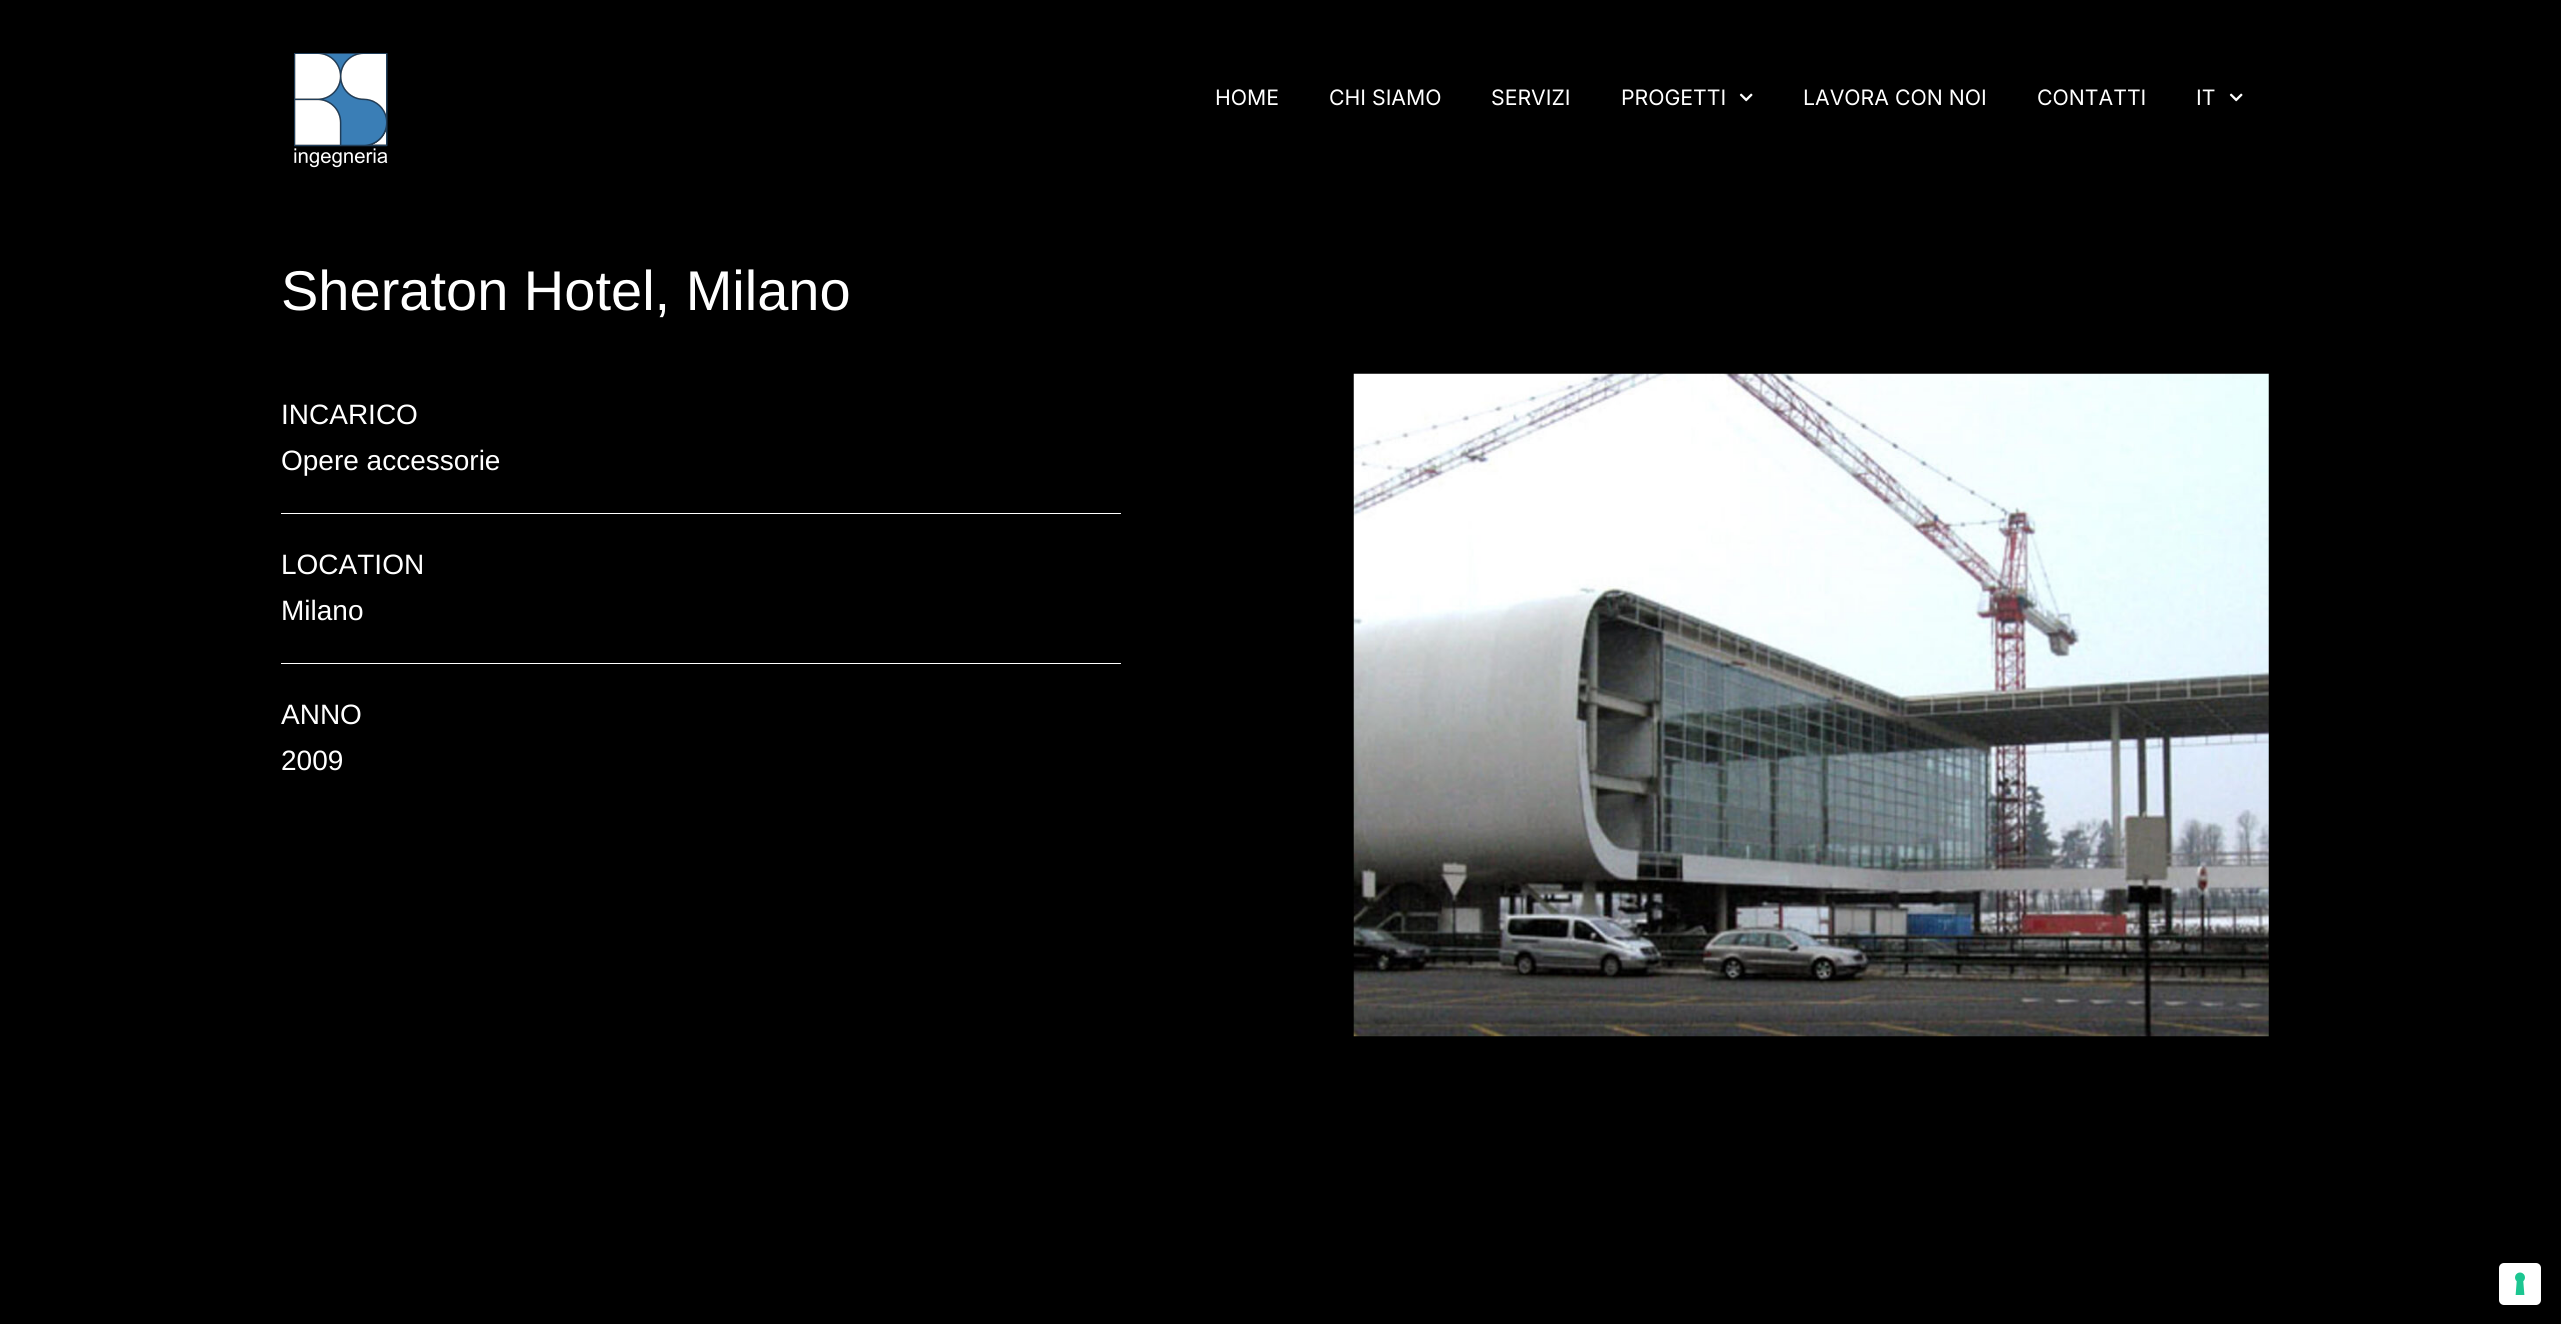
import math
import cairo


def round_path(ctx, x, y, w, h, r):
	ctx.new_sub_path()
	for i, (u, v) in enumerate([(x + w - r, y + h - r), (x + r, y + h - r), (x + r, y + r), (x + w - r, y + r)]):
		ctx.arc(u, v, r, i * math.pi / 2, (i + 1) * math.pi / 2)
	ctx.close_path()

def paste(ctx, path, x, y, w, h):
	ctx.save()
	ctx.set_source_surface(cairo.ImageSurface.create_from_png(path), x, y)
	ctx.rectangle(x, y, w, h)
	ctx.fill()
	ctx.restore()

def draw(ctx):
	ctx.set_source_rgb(0, 0, 0)
	ctx.paint()
	paste(ctx, 'media/1.png', 294, 53, 94, 115)
	ctx.select_font_face('Inter')
	ctx.set_font_size(21.25)
	ctx.set_source_rgb(1, 1, 1)
	for x, y, s in [
		(1215, 105, 'HOME'),
		(1329, 105, 'CHI SIAMO'),
		(1491, 105, 'SERVIZI'),
		(1621, 105, 'PROGETTI'),
	]:
		ctx.move_to(x, y)
		ctx.show_text(s)
	paste(ctx, 'media/2.png', 1739, 93, 14, 9)
	for x, y, s in [
		(1803, 105, 'LAVORA CON NOI'),
		(2037, 105, 'CONTATTI'),
		(2196, 105, 'IT'),
	]:
		ctx.move_to(x, y)
		ctx.show_text(s)
	paste(ctx, 'media/2.png', 2229, 93, 14, 9)
	ctx.select_font_face('Liberation Sans')
	ctx.set_font_size(56)
	ctx.move_to(281, 310)
	ctx.show_text('Sheraton Hotel, Milano')
	ctx.set_font_size(28)
	ctx.move_to(281, 424)
	ctx.show_text('INCARICO')
	ctx.move_to(281, 470)
	ctx.show_text('Opere accessorie')
	ctx.rectangle(281, 513, 840, 1)
	ctx.fill()
	ctx.move_to(281, 574)
	ctx.show_text('LOCATION')
	ctx.move_to(281, 620)
	ctx.show_text('Milano')
	ctx.rectangle(281, 663, 840, 1)
	ctx.fill()
	ctx.move_to(281, 724)
	ctx.show_text('ANNO')
	ctx.move_to(281, 770)
	ctx.show_text('2009')
	paste(ctx, 'media/3.png', 1353, 373, 916, 664)
	round_path(ctx, 2499, 1263, 42, 42, 5)
	ctx.fill()
	paste(ctx, 'media/4.png', 2515, 1272, 10, 23)


surface = cairo.ImageSurface(cairo.FORMAT_RGB24, 2561, 1324)
ctx = cairo.Context(surface)
options = cairo.FontOptions()
options.set_hint_metrics(cairo.HINT_METRICS_OFF)
options.set_hint_style(cairo.HINT_STYLE_NONE)
ctx.set_font_options(options)
ctx.set_miter_limit(4)
draw(ctx)
surface.write_to_png('image.png')
